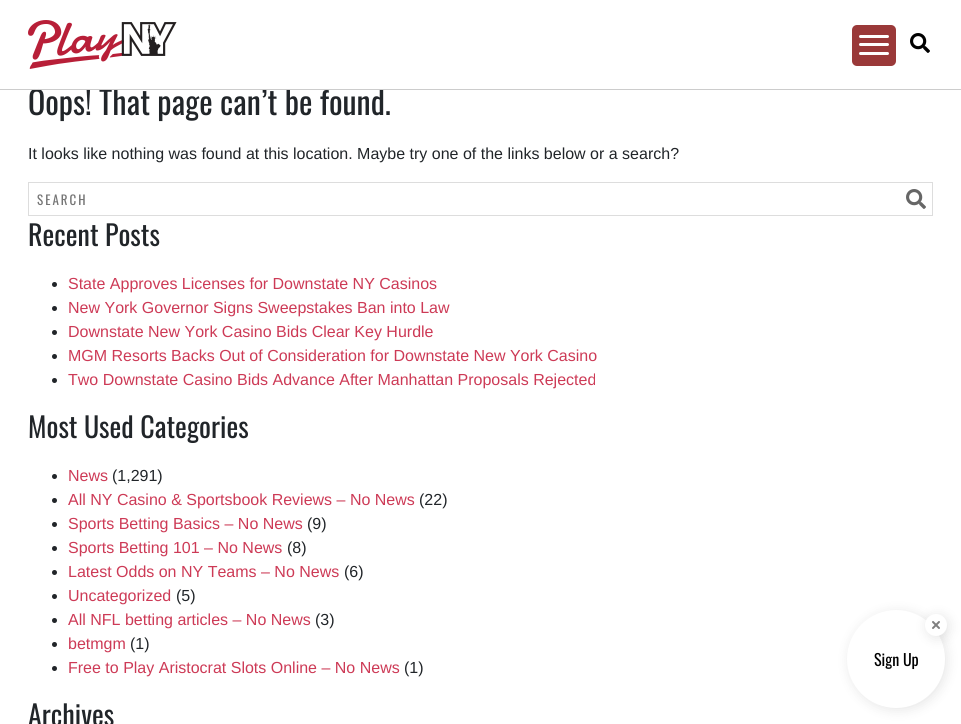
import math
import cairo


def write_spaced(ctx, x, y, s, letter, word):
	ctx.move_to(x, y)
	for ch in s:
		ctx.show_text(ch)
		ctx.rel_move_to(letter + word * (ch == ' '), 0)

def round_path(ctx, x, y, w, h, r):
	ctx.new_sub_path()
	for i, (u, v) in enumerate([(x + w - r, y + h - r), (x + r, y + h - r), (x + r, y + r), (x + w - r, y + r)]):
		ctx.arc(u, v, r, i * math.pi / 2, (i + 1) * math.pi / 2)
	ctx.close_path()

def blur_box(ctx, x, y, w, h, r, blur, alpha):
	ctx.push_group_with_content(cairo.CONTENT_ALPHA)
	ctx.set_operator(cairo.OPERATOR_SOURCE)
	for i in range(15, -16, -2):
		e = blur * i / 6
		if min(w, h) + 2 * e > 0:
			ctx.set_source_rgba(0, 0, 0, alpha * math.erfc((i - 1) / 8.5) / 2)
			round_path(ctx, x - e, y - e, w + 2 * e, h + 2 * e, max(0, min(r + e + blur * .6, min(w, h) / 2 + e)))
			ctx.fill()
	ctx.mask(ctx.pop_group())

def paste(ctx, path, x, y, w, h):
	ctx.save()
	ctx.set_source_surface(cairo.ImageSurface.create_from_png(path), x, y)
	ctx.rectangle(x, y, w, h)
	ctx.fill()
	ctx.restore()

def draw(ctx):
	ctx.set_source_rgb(1, 1, 1)
	ctx.paint()
	ctx.select_font_face('Oswald')
	ctx.set_font_size(32)
	ctx.set_source_rgb(0.129, 0.145, 0.161)
	ctx.move_to(28, 115)
	ctx.show_text('Oops! That page can’t be found.')
	ctx.select_font_face('Liberation Sans')
	ctx.set_font_size(16)
	ctx.move_to(28, 159)
	ctx.show_text('It looks like nothing was found at this location. Maybe try one of the links below or a search?')
	ctx.rectangle(28.5, 182.5, 904, 33)
	ctx.set_source_rgb(0.867, 0.867, 0.867)
	ctx.set_line_width(1)
	ctx.stroke()
	ctx.select_font_face('Oswald')
	ctx.set_font_size(13)
	ctx.set_source_rgb(0.459, 0.459, 0.459)
	write_spaced(ctx, 37, 205, 'SEARCH', 2, 0)
	paste(ctx, 'media/1.png', 906, 189, 20, 20)
	ctx.set_font_size(28)
	ctx.set_source_rgb(0.129, 0.145, 0.161)
	ctx.move_to(28, 246)
	ctx.show_text('Recent Posts')
	ctx.new_path()
	ctx.arc(54.5, 284.5, 2.5, 0, 2 * math.pi)
	ctx.fill()
	ctx.select_font_face('Liberation Sans')
	ctx.set_font_size(16)
	ctx.set_source_rgb(0.804, 0.227, 0.337)
	ctx.move_to(68, 289)
	ctx.show_text('State Approves Licenses for Downstate NY Casinos')
	ctx.set_source_rgb(0.129, 0.145, 0.161)
	ctx.new_path()
	ctx.arc(54.5, 308.5, 2.5, 0, 2 * math.pi)
	ctx.fill()
	ctx.set_source_rgb(0.804, 0.227, 0.337)
	ctx.move_to(68, 313)
	ctx.show_text('New York Governor Signs Sweepstakes Ban into Law')
	ctx.set_source_rgb(0.129, 0.145, 0.161)
	ctx.new_path()
	ctx.arc(54.5, 332.5, 2.5, 0, 2 * math.pi)
	ctx.fill()
	ctx.set_source_rgb(0.804, 0.227, 0.337)
	ctx.move_to(68, 337)
	ctx.show_text('Downstate New York Casino Bids Clear Key Hurdle')
	ctx.set_source_rgb(0.129, 0.145, 0.161)
	ctx.new_path()
	ctx.arc(54.5, 356.5, 2.5, 0, 2 * math.pi)
	ctx.fill()
	ctx.set_source_rgb(0.804, 0.227, 0.337)
	ctx.move_to(68, 361)
	ctx.show_text('MGM Resorts Backs Out of Consideration for Downstate New York Casino')
	ctx.set_source_rgb(0.129, 0.145, 0.161)
	ctx.new_path()
	ctx.arc(54.5, 380.5, 2.5, 0, 2 * math.pi)
	ctx.fill()
	ctx.set_source_rgb(0.804, 0.227, 0.337)
	ctx.move_to(68, 385)
	ctx.show_text('Two Downstate Casino Bids Advance After Manhattan Proposals Rejected')
	ctx.select_font_face('Oswald')
	ctx.set_font_size(28)
	ctx.set_source_rgb(0.129, 0.145, 0.161)
	ctx.move_to(28, 438)
	ctx.show_text('Most Used Categories')
	ctx.new_path()
	ctx.arc(54.5, 476.5, 2.5, 0, 2 * math.pi)
	ctx.fill()
	ctx.select_font_face('Liberation Sans')
	ctx.set_font_size(16)
	ctx.set_source_rgb(0.804, 0.227, 0.337)
	ctx.move_to(68, 481)
	ctx.show_text('News')
	ctx.set_source_rgb(0.129, 0.145, 0.161)
	ctx.move_to(112, 481)
	ctx.show_text('(1,291)')
	ctx.new_path()
	ctx.arc(54.5, 500.5, 2.5, 0, 2 * math.pi)
	ctx.fill()
	ctx.set_source_rgb(0.804, 0.227, 0.337)
	ctx.move_to(68, 505)
	ctx.show_text('All NY Casino & Sportsbook Reviews – No News')
	ctx.set_source_rgb(0.129, 0.145, 0.161)
	ctx.move_to(419, 505)
	ctx.show_text('(22)')
	ctx.new_path()
	ctx.arc(54.5, 524.5, 2.5, 0, 2 * math.pi)
	ctx.fill()
	ctx.set_source_rgb(0.804, 0.227, 0.337)
	ctx.move_to(68, 529)
	ctx.show_text('Sports Betting Basics – No News')
	ctx.set_source_rgb(0.129, 0.145, 0.161)
	ctx.move_to(307, 529)
	ctx.show_text('(9)')
	ctx.new_path()
	ctx.arc(54.5, 548.5, 2.5, 0, 2 * math.pi)
	ctx.fill()
	ctx.set_source_rgb(0.804, 0.227, 0.337)
	ctx.move_to(68, 553)
	ctx.show_text('Sports Betting 101 – No News')
	ctx.set_source_rgb(0.129, 0.145, 0.161)
	ctx.move_to(287, 553)
	ctx.show_text('(8)')
	ctx.new_path()
	ctx.arc(54.5, 572.5, 2.5, 0, 2 * math.pi)
	ctx.fill()
	ctx.set_source_rgb(0.804, 0.227, 0.337)
	ctx.move_to(68, 577)
	ctx.show_text('Latest Odds on NY Teams – No News')
	ctx.set_source_rgb(0.129, 0.145, 0.161)
	ctx.move_to(344, 577)
	ctx.show_text('(6)')
	ctx.new_path()
	ctx.arc(54.5, 596.5, 2.5, 0, 2 * math.pi)
	ctx.fill()
	ctx.set_source_rgb(0.804, 0.227, 0.337)
	ctx.move_to(68, 601)
	ctx.show_text('Uncategorized')
	ctx.set_source_rgb(0.129, 0.145, 0.161)
	ctx.move_to(176, 601)
	ctx.show_text('(5)')
	ctx.new_path()
	ctx.arc(54.5, 620.5, 2.5, 0, 2 * math.pi)
	ctx.fill()
	ctx.set_source_rgb(0.804, 0.227, 0.337)
	ctx.move_to(68, 625)
	ctx.show_text('All NFL betting articles – No News')
	ctx.set_source_rgb(0.129, 0.145, 0.161)
	ctx.move_to(315, 625)
	ctx.show_text('(3)')
	ctx.new_path()
	ctx.arc(54.5, 644.5, 2.5, 0, 2 * math.pi)
	ctx.fill()
	ctx.set_source_rgb(0.804, 0.227, 0.337)
	ctx.move_to(68, 649)
	ctx.show_text('betmgm')
	ctx.set_source_rgb(0.129, 0.145, 0.161)
	ctx.move_to(130, 649)
	ctx.show_text('(1)')
	ctx.new_path()
	ctx.arc(54.5, 668.5, 2.5, 0, 2 * math.pi)
	ctx.fill()
	ctx.set_source_rgb(0.804, 0.227, 0.337)
	ctx.move_to(68, 673)
	ctx.show_text('Free to Play Aristocrat Slots Online – No News')
	ctx.set_source_rgb(0.129, 0.145, 0.161)
	ctx.move_to(404, 673)
	ctx.show_text('(1)')
	ctx.select_font_face('Oswald')
	ctx.set_font_size(28)
	ctx.move_to(28, 726)
	ctx.show_text('Archives')
	ctx.set_source_rgb(1, 1, 1)
	ctx.rectangle(35, 88, 3, 1)
	ctx.fill()
	ctx.set_source_rgb(0.8, 0.8, 0.8)
	ctx.rectangle(0, 89, 961, 1)
	ctx.fill()
	paste(ctx, 'media/2.png', 910, 33, 20, 20)
	paste(ctx, 'media/3.png', 28, 20, 149, 49)
	ctx.set_source_rgb(0.604, 0.224, 0.224)
	round_path(ctx, 852, 25, 44, 41, 5)
	ctx.fill()
	ctx.set_source_rgb(1, 1, 1)
	round_path(ctx, 859, 35, 30, 3, 1.5)
	ctx.fill()
	round_path(ctx, 859, 43, 30, 3, 1.5)
	ctx.fill()
	round_path(ctx, 859, 52, 30, 3, 1.5)
	ctx.fill()
	ctx.set_source_rgb(0, 0, 0)
	blur_box(ctx, 849, 612, 98, 98, 49, 6, 0.1)
	ctx.set_source_rgb(1, 1, 1)
	ctx.arc(896, 659, 49, 0, 2 * math.pi)
	ctx.fill()
	ctx.set_source_rgb(0, 0, 0)
	blur_box(ctx, 927, 616, 22, 22, 11, 6, 0.1)
	ctx.set_source_rgb(1, 1, 1)
	ctx.arc(936, 625, 11, 0, 2 * math.pi)
	ctx.fill()
	paste(ctx, 'media/4.png', 932, 621, 8, 8)
	ctx.set_font_size(16)
	ctx.set_source_rgb(0, 0, 0)
	ctx.move_to(874, 666)
	ctx.show_text('Sign Up')


surface = cairo.ImageSurface(cairo.FORMAT_RGB24, 961, 724)
ctx = cairo.Context(surface)
options = cairo.FontOptions()
options.set_hint_metrics(cairo.HINT_METRICS_OFF)
options.set_hint_style(cairo.HINT_STYLE_NONE)
ctx.set_font_options(options)
ctx.set_miter_limit(4)
draw(ctx)
surface.write_to_png('image.png')
